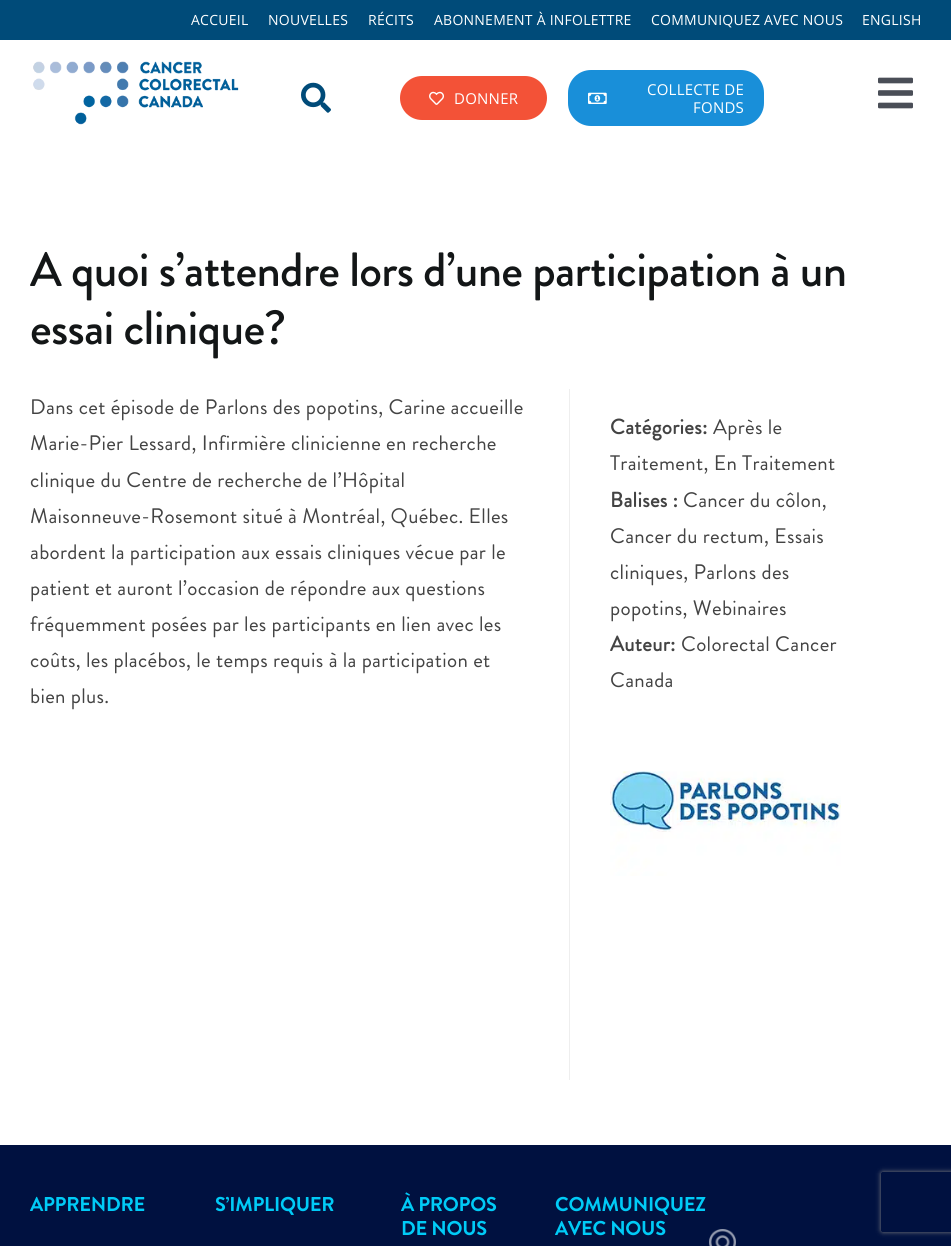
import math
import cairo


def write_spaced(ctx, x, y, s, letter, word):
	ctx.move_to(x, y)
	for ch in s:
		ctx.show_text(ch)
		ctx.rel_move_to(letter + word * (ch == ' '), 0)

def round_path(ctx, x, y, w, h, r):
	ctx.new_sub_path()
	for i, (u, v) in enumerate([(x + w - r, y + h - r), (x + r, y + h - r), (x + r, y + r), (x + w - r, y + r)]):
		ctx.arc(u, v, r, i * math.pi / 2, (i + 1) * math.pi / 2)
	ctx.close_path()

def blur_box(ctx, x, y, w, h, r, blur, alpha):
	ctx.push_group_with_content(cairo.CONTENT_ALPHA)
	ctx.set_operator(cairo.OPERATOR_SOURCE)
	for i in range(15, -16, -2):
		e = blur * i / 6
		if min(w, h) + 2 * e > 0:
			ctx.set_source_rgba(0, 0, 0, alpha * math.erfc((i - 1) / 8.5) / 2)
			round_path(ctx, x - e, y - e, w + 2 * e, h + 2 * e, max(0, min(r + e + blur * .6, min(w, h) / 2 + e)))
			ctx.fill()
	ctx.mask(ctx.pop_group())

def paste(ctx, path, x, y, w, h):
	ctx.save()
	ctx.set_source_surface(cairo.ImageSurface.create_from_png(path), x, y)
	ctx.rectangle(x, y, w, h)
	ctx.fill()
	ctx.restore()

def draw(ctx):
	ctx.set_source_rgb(1, 1, 1)
	ctx.paint()
	ctx.set_source_rgb(0, 0.294, 0.475)
	ctx.rectangle(0, 0, 951, 40)
	ctx.fill()
	ctx.select_font_face('Open Sans')
	ctx.set_font_size(14)
	ctx.set_source_rgb(1, 1, 1)
	for x, y, s in [
		(191, 25, 'ACCUEIL'),
		(268, 25, 'NOUVELLES'),
		(368, 25, 'RÉCITS'),
		(434, 25, 'ABONNEMENT À INFOLETTRE'),
		(651, 25, 'COMMUNIQUEZ AVEC NOUS'),
		(862, 25, 'ENGLISH'),
	]:
		write_spaced(ctx, x, y, s, 0.25, 0)
	paste(ctx, 'media/1.png', 33, 61, 206, 64)
	paste(ctx, 'media/2.png', 301, 82, 30, 31)
	ctx.set_source_rgb(0.953, 0.322, 0.216)
	round_path(ctx, 400, 76, 147, 44, 22)
	ctx.fill()
	paste(ctx, 'media/3.png', 429, 91, 15, 14)
	ctx.set_font_size(15)
	ctx.set_source_rgb(1, 1, 1)
	write_spaced(ctx, 454, 104, 'DONNER', 0.25, 0)
	ctx.set_source_rgb(0.098, 0.561, 0.851)
	round_path(ctx, 568, 70, 196, 56, 23)
	ctx.fill()
	paste(ctx, 'media/4.png', 588, 92, 19, 12)
	ctx.set_source_rgb(1, 1, 1)
	write_spaced(ctx, 647, 95, 'COLLECTE DE', 0.25, 0)
	write_spaced(ctx, 693, 113, 'FONDS', 0.25, 0)
	paste(ctx, 'media/5.png', 878, 77, 35, 32)
	ctx.select_font_face('Brandon Grotesque Medium')
	ctx.set_font_size(48)
	ctx.set_source_rgb(0.078, 0.086, 0.09)
	write_spaced(ctx, 30, 286, 'A quoi s’attendre lors d’une participation à un', -0.7, 0)
	write_spaced(ctx, 30, 344, 'essai clinique?', -0.7, 0)
	ctx.select_font_face('Brandon Grotesque')
	ctx.set_font_size(21)
	ctx.set_source_rgb(0.263, 0.263, 0.263)
	for x, y, s in [
		(30, 414, 'Dans cet épisode de Parlons des popotins, Carine accueille'),
		(30, 450, 'Marie-Pier Lessard, Infirmière clinicienne en recherche'),
		(30, 487, 'clinique du Centre de recherche de l’Hôpital'),
		(30, 523, 'Maisonneuve-Rosemont situé à Montréal, Québec. Elles'),
		(30, 559, 'abordent la participation aux essais cliniques vécue par le'),
		(30, 595, 'patient et auront l’occasion de répondre aux questions'),
		(30, 631, 'fréquemment posées par les participants en lien avec les'),
		(30, 667, 'coûts, les placébos, le temps requis à la participation et'),
		(30, 703, 'bien plus.'),
	]:
		write_spaced(ctx, x, y, s, 0.32, 0)
	ctx.set_source_rgb(0.933, 0.933, 0.933)
	ctx.rectangle(569, 389, 1, 691)
	ctx.fill()
	ctx.select_font_face('Brandon Grotesque', cairo.FONT_SLANT_NORMAL, cairo.FONT_WEIGHT_BOLD)
	ctx.set_source_rgb(0.263, 0.263, 0.263)
	write_spaced(ctx, 610, 434, 'Catégories:', 0.32, 0)
	ctx.select_font_face('Brandon Grotesque')
	write_spaced(ctx, 713, 434, 'Après le', 0.32, 0)
	write_spaced(ctx, 610, 470, 'Traitement, En Traitement', 0.32, 0)
	ctx.select_font_face('Brandon Grotesque', cairo.FONT_SLANT_NORMAL, cairo.FONT_WEIGHT_BOLD)
	write_spaced(ctx, 610, 507, 'Balises :', 0.32, 0)
	ctx.select_font_face('Brandon Grotesque')
	for x, y, s in [
		(683, 507, 'Cancer du côlon,'),
		(610, 543, 'Cancer du rectum, Essais'),
		(610, 579, 'cliniques, Parlons des'),
		(610, 615, 'popotins, Webinaires'),
	]:
		write_spaced(ctx, x, y, s, 0.32, 0)
	ctx.select_font_face('Brandon Grotesque', cairo.FONT_SLANT_NORMAL, cairo.FONT_WEIGHT_BOLD)
	write_spaced(ctx, 610, 651, 'Auteur:', 0.32, 0)
	ctx.select_font_face('Brandon Grotesque')
	write_spaced(ctx, 681, 651, 'Colorectal Cancer', 0.32, 0)
	write_spaced(ctx, 610, 687, 'Canada', 0.32, 0)
	paste(ctx, 'media/6.png', 610, 771, 231, 105)
	gradient = cairo.LinearGradient(475, 1145, 476, 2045)
	gradient.add_color_stop_rgba(0.76, 0, 0.067, 0.251, 1)
	gradient.add_color_stop_rgba(1, 0, 0.008, 0.031, 1)
	ctx.set_source(gradient)
	ctx.rectangle(0, 1145, 951, 101)
	ctx.fill()
	ctx.select_font_face('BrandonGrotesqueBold', cairo.FONT_SLANT_NORMAL, cairo.FONT_WEIGHT_BOLD)
	ctx.set_font_size(20)
	ctx.set_source_rgb(0, 0.796, 0.965)
	for x, y, s in [
		(30, 1211, 'APPRENDRE'),
		(215, 1211, 'S’IMPLIQUER'),
		(401, 1211, 'À PROPOS'),
		(401, 1235, 'DE NOUS'),
		(555, 1211, 'COMMUNIQUEZ'),
		(555, 1235, 'AVEC NOUS'),
	]:
		write_spaced(ctx, x, y, s, -0.25, 0)
	paste(ctx, 'media/7.png', 709, 1229, 27, 17)
	ctx.save()
	ctx.set_fill_rule(cairo.FILL_RULE_EVEN_ODD)
	ctx.new_path()
	ctx.move_to(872, 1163)
	ctx.line_to(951, 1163)
	ctx.line_to(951, 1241)
	ctx.line_to(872, 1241)
	ctx.close_path()
	ctx.move_to(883, 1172)
	ctx.line_to(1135, 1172)
	ctx.curve_to(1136, 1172, 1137, 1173, 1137, 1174)
	ctx.line_to(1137, 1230)
	ctx.curve_to(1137, 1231, 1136, 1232, 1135, 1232)
	ctx.line_to(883, 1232)
	ctx.curve_to(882, 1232, 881, 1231, 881, 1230)
	ctx.line_to(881, 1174)
	ctx.curve_to(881, 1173, 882, 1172, 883, 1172)
	ctx.close_path()
	ctx.clip()
	ctx.set_source_rgb(0.502, 0.502, 0.502)
	blur_box(ctx, 881, 1172, 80, 60, 2, 2.5, 1)
	ctx.restore()


surface = cairo.ImageSurface(cairo.FORMAT_RGB24, 951, 1246)
ctx = cairo.Context(surface)
options = cairo.FontOptions()
options.set_hint_metrics(cairo.HINT_METRICS_OFF)
options.set_hint_style(cairo.HINT_STYLE_NONE)
ctx.set_font_options(options)
ctx.set_miter_limit(4)
draw(ctx)
surface.write_to_png('image.png')
